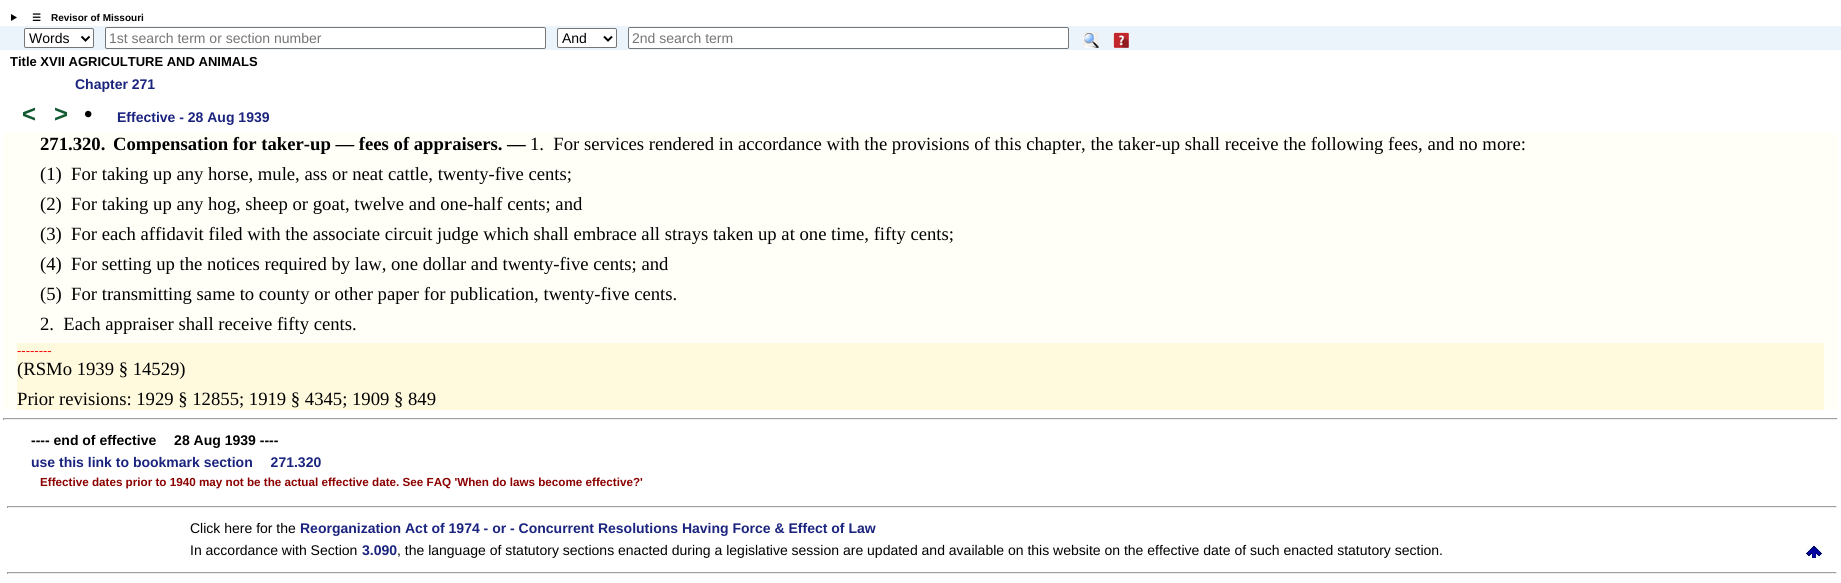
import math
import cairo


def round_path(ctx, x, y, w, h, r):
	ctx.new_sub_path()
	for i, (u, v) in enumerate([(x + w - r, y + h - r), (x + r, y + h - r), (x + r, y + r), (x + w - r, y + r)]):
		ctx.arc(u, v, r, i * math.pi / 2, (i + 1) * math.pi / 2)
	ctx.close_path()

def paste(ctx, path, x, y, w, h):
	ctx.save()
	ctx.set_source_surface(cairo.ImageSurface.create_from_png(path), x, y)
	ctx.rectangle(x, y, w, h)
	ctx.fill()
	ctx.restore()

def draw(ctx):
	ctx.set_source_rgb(1, 1, 1)
	ctx.paint()
	ctx.set_source_rgb(0, 0, 0)
	ctx.new_path()
	ctx.move_to(11, 14)
	ctx.line_to(17, 17.5)
	ctx.line_to(11, 21)
	ctx.close_path()
	ctx.fill()
	ctx.select_font_face('DejaVu Sans', cairo.FONT_SLANT_NORMAL, cairo.FONT_WEIGHT_BOLD)
	ctx.set_font_size(10)
	ctx.move_to(32, 21)
	ctx.show_text('☰')
	ctx.select_font_face('Liberation Sans', cairo.FONT_SLANT_NORMAL, cairo.FONT_WEIGHT_BOLD)
	ctx.move_to(51, 21)
	ctx.show_text('Revisor of Missouri')
	ctx.set_source_rgb(0.918, 0.953, 0.984)
	ctx.rectangle(0, 26, 1841, 24)
	ctx.fill()
	ctx.set_source_rgb(1, 1, 1)
	round_path(ctx, 24.5, 28.5, 69, 19, 1.5)
	ctx.fill_preserve()
	ctx.set_source_rgb(0.463, 0.463, 0.463)
	ctx.set_line_width(1)
	ctx.stroke()
	ctx.new_path()
	ctx.move_to(81.5, 36.5)
	ctx.line_to(85.5, 40.5)
	ctx.line_to(89.5, 36.5)
	ctx.set_source_rgb(0, 0, 0)
	ctx.set_line_width(2)
	ctx.stroke()
	ctx.select_font_face('Liberation Sans')
	ctx.set_font_size(14)
	ctx.move_to(29, 43)
	ctx.show_text('Words')
	ctx.set_source_rgb(1, 1, 1)
	round_path(ctx, 105.5, 27.5, 440, 21, 1.5)
	ctx.fill_preserve()
	ctx.set_source_rgb(0.463, 0.463, 0.463)
	ctx.set_line_width(1)
	ctx.stroke()
	ctx.set_source_rgb(0.459, 0.459, 0.459)
	ctx.move_to(109, 43)
	ctx.show_text('1st search term or section number')
	ctx.set_source_rgb(1, 1, 1)
	round_path(ctx, 557.5, 28.5, 59, 19, 1.5)
	ctx.fill_preserve()
	ctx.set_source_rgb(0.463, 0.463, 0.463)
	ctx.stroke()
	ctx.new_path()
	ctx.move_to(604, 36.5)
	ctx.line_to(608, 40.5)
	ctx.line_to(612, 36.5)
	ctx.set_source_rgb(0, 0, 0)
	ctx.set_line_width(2)
	ctx.stroke()
	ctx.move_to(562, 43)
	ctx.show_text('And')
	ctx.set_source_rgb(1, 1, 1)
	round_path(ctx, 628.5, 27.5, 440, 21, 1.5)
	ctx.fill_preserve()
	ctx.set_source_rgb(0.463, 0.463, 0.463)
	ctx.set_line_width(1)
	ctx.stroke()
	ctx.set_source_rgb(0.459, 0.459, 0.459)
	ctx.move_to(632, 43)
	ctx.show_text('2nd search term')
	paste(ctx, 'media/1.png', 1083, 32, 16, 16)
	paste(ctx, 'media/2.png', 1113, 32, 16, 16)
	ctx.select_font_face('Liberation Sans', cairo.FONT_SLANT_NORMAL, cairo.FONT_WEIGHT_BOLD)
	ctx.set_font_size(13)
	ctx.set_source_rgb(0, 0, 0)
	ctx.move_to(10, 66)
	ctx.show_text('Title XVII AGRICULTURE AND ANIMALS')
	ctx.set_font_size(14)
	ctx.set_source_rgb(0.102, 0.137, 0.494)
	ctx.move_to(75, 89)
	ctx.show_text('Chapter 271')
	ctx.set_font_size(24)
	ctx.set_source_rgb(0.078, 0.353, 0.196)
	ctx.move_to(22, 122)
	ctx.show_text('<')
	ctx.move_to(54, 122)
	ctx.show_text('>')
	ctx.select_font_face('Liberation Sans')
	ctx.set_source_rgb(0, 0, 0)
	ctx.move_to(84, 122)
	ctx.show_text('•')
	ctx.select_font_face('Liberation Sans', cairo.FONT_SLANT_NORMAL, cairo.FONT_WEIGHT_BOLD)
	ctx.set_font_size(14)
	ctx.set_source_rgb(0.102, 0.137, 0.494)
	ctx.move_to(117, 122)
	ctx.show_text('Effective - 28 Aug 1939')
	ctx.set_source_rgb(1, 1, 0.969)
	ctx.rectangle(3, 133, 1835, 277)
	ctx.fill()
	ctx.select_font_face('Liberation Serif', cairo.FONT_SLANT_NORMAL, cairo.FONT_WEIGHT_BOLD)
	ctx.set_font_size(18.67)
	ctx.set_source_rgb(0, 0, 0)
	ctx.move_to(40, 150)
	ctx.show_text('271.320.')
	ctx.move_to(113, 150)
	ctx.show_text('Compensation for taker-up — fees of appraisers. —')
	ctx.select_font_face('Liberation Serif')
	for x, y, s in [
		(530, 150, '1.  For services rendered in accordance with the provisions of this chapter, the taker-up shall receive the following fees, and no more:'),
		(40, 180, '(1)  For taking up any horse, mule, ass or neat cattle, twenty-five cents;'),
		(40, 210, '(2)  For taking up any hog, sheep or goat, twelve and one-half cents; and'),
		(40, 240, '(3)  For each affidavit filed with the associate circuit judge which shall embrace all strays taken up at one time, fifty cents;'),
		(40, 270, '(4)  For setting up the notices required by law, one dollar and twenty-five cents; and'),
		(40, 300, '(5)  For transmitting same to county or other paper for publication, twenty-five cents.'),
		(40, 330, '2.  Each appraiser shall receive fifty cents.'),
	]:
		ctx.move_to(x, y)
		ctx.show_text(s)
	ctx.set_source_rgb(1, 0.98, 0.871)
	ctx.rectangle(17, 343, 1807, 67)
	ctx.fill()
	ctx.select_font_face('Liberation Sans')
	ctx.set_font_size(13)
	ctx.set_source_rgb(1, 0, 0)
	ctx.move_to(17, 355)
	ctx.show_text('--------')
	ctx.select_font_face('Liberation Serif')
	ctx.set_font_size(18.67)
	ctx.set_source_rgb(0, 0, 0)
	ctx.move_to(17, 375)
	ctx.show_text('(RSMo 1939 § 14529)')
	ctx.move_to(17, 405)
	ctx.show_text('Prior revisions: 1929 § 12855; 1919 § 4345; 1909 § 849')
	ctx.set_source_rgb(0.624, 0.624, 0.624)
	ctx.rectangle(3, 418, 1835, 1)
	ctx.fill()
	ctx.set_source_rgb(0.933, 0.933, 0.933)
	ctx.rectangle(1837, 418, 1, 2)
	ctx.rectangle(3, 419, 1835, 1)
	ctx.fill()
	ctx.set_source_rgb(0.624, 0.624, 0.624)
	ctx.rectangle(3, 418, 1, 2)
	ctx.fill()
	ctx.select_font_face('Liberation Sans', cairo.FONT_SLANT_NORMAL, cairo.FONT_WEIGHT_BOLD)
	ctx.set_font_size(14)
	ctx.set_source_rgb(0, 0, 0)
	ctx.move_to(31, 445)
	ctx.show_text('---- end of effective  28 Aug 1939 ----')
	ctx.set_source_rgb(0.102, 0.137, 0.494)
	ctx.move_to(31, 467)
	ctx.show_text('use this link to bookmark section  271.320')
	ctx.set_font_size(11.67)
	ctx.set_source_rgb(0.545, 0, 0)
	ctx.move_to(40, 486)
	ctx.show_text('Effective dates prior to 1940 may not be the actual effective date. See FAQ \'When do laws become effective?\'')
	ctx.set_source_rgb(0.624, 0.624, 0.624)
	ctx.rectangle(7, 506, 1830, 1)
	ctx.fill()
	ctx.set_source_rgb(0.933, 0.933, 0.933)
	ctx.rectangle(1836, 506, 1, 2)
	ctx.rectangle(7, 507, 1830, 1)
	ctx.fill()
	ctx.set_source_rgb(0.624, 0.624, 0.624)
	ctx.rectangle(7, 506, 1, 2)
	ctx.fill()
	ctx.select_font_face('Liberation Sans')
	ctx.set_font_size(14)
	ctx.set_source_rgb(0, 0, 0)
	ctx.move_to(190, 533)
	ctx.show_text('Click here for the')
	ctx.select_font_face('Liberation Sans', cairo.FONT_SLANT_NORMAL, cairo.FONT_WEIGHT_BOLD)
	ctx.set_source_rgb(0.102, 0.137, 0.494)
	ctx.move_to(300, 533)
	ctx.show_text('Reorganization Act of 1974 - or - Concurrent Resolutions Having Force & Effect of Law')
	ctx.select_font_face('Liberation Sans')
	ctx.set_source_rgb(0, 0, 0)
	ctx.move_to(190, 555)
	ctx.show_text('In accordance with Section')
	ctx.select_font_face('Liberation Sans', cairo.FONT_SLANT_NORMAL, cairo.FONT_WEIGHT_BOLD)
	ctx.set_source_rgb(0.102, 0.137, 0.494)
	ctx.move_to(362, 555)
	ctx.show_text('3.090')
	ctx.select_font_face('Liberation Sans')
	ctx.set_source_rgb(0, 0, 0)
	ctx.move_to(397, 555)
	ctx.show_text(', the language of statutory sections enacted during a legislative session are updated and available on this website on the effective date of such enacted statutory section.')
	paste(ctx, 'media/3.png', 1806, 545, 16, 13)
	ctx.set_source_rgb(0.624, 0.624, 0.624)
	ctx.rectangle(7, 572, 1830, 1)
	ctx.fill()
	ctx.set_source_rgb(0.933, 0.933, 0.933)
	ctx.rectangle(1836, 572, 1, 2)
	ctx.rectangle(7, 573, 1830, 1)
	ctx.fill()
	ctx.set_source_rgb(0.624, 0.624, 0.624)
	ctx.rectangle(7, 572, 1, 2)
	ctx.fill()


surface = cairo.ImageSurface(cairo.FORMAT_RGB24, 1841, 583)
ctx = cairo.Context(surface)
options = cairo.FontOptions()
options.set_hint_metrics(cairo.HINT_METRICS_OFF)
options.set_hint_style(cairo.HINT_STYLE_NONE)
ctx.set_font_options(options)
ctx.set_miter_limit(4)
draw(ctx)
surface.write_to_png('image.png')
